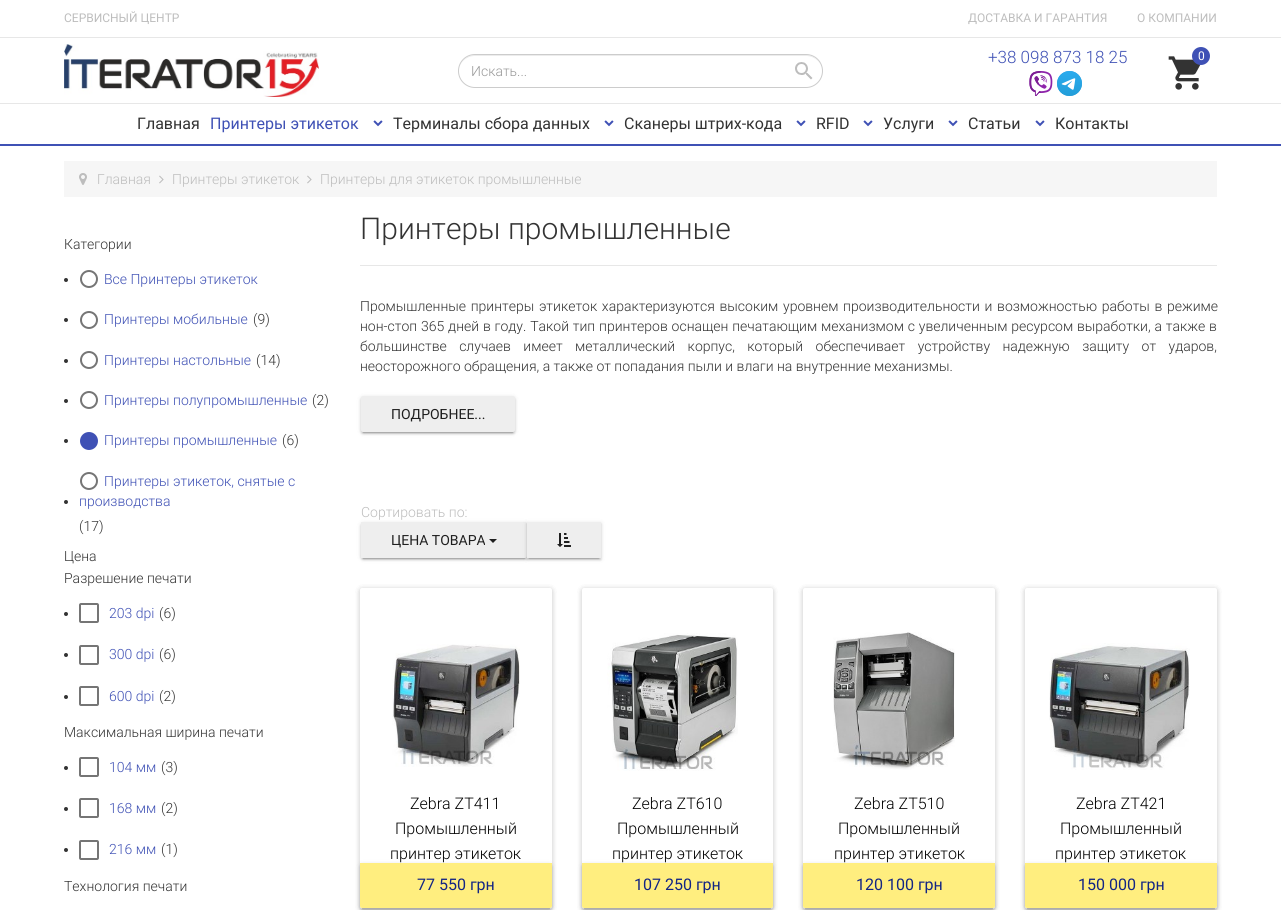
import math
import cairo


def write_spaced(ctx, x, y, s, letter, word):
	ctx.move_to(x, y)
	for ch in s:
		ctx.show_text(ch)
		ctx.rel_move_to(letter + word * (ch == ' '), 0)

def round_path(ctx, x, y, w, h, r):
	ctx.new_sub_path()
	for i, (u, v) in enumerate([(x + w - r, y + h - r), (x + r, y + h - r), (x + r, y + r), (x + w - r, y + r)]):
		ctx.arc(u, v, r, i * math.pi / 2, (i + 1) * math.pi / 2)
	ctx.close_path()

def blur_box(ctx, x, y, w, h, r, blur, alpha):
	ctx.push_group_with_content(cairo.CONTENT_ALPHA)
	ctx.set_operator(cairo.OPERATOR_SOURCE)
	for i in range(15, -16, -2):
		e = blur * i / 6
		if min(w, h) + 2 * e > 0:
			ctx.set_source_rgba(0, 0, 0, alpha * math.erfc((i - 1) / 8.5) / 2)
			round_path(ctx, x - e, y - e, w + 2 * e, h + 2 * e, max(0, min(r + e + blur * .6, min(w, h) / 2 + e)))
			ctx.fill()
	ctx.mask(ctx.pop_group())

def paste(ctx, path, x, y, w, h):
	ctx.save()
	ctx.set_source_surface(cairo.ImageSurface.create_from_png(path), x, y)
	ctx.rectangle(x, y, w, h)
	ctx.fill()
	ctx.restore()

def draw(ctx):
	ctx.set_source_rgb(1, 1, 1)
	ctx.paint()
	ctx.set_source_rgb(0.906, 0.906, 0.906)
	ctx.rectangle(0, 37, 1281, 1)
	ctx.fill()
	ctx.select_font_face('Roboto')
	ctx.set_font_size(12)
	ctx.set_source_rgb(0.741, 0.741, 0.741)
	for x, y, s in [
		(64, 22, 'СЕРВИСНЫЙ ЦЕНТР'),
		(968, 22, 'ДОСТАВКА И ГАРАНТИЯ'),
		(1137, 22, 'О КОМПАНИИ'),
	]:
		ctx.move_to(x, y)
		ctx.show_text(s)
	paste(ctx, 'media/1.png', 64, 44, 255, 53)
	ctx.select_font_face('Roboto Light')
	ctx.set_font_size(17)
	ctx.set_source_rgb(0.247, 0.318, 0.71)
	ctx.move_to(988, 63)
	ctx.show_text('+38 098 873 18 25')
	paste(ctx, 'media/2.png', 1029, 71, 24, 25)
	paste(ctx, 'media/3.png', 1057, 71, 25, 25)
	paste(ctx, 'media/4.png', 1168, 56, 33, 34)
	ctx.arc(1201, 56, 9, 0, 2 * math.pi)
	ctx.fill()
	ctx.select_font_face('Roboto')
	ctx.set_font_size(12)
	ctx.set_source_rgb(1, 1, 1)
	ctx.move_to(1198, 60)
	ctx.show_text('0')
	ctx.set_source_rgb(0.925, 0.925, 0.925)
	ctx.new_path()
	ctx.move_to(475, 56)
	ctx.line_to(806, 56)
	ctx.curve_to(815, 56, 822, 63, 822, 71)
	ctx.curve_to(822, 63, 815, 55, 806, 55)
	ctx.line_to(475, 55)
	ctx.curve_to(466, 55, 459, 63, 459, 71)
	ctx.curve_to(459, 63, 466, 56, 475, 56)
	ctx.close_path()
	ctx.fill()
	round_path(ctx, 458.5, 54.5, 364, 33, 16.5)
	ctx.set_source_rgb(0.8, 0.8, 0.8)
	ctx.set_line_width(1)
	ctx.stroke()
	ctx.select_font_face('Roboto Light')
	ctx.set_font_size(14)
	ctx.set_source_rgb(0.6, 0.6, 0.6)
	ctx.move_to(471, 76)
	ctx.show_text('Искать...')
	paste(ctx, 'media/5.png', 795, 62, 18, 18)
	ctx.set_source_rgb(0.906, 0.906, 0.906)
	ctx.rectangle(0, 103, 1281, 1)
	ctx.fill()
	ctx.set_source_rgb(0.247, 0.318, 0.71)
	ctx.rectangle(0, 144, 1281, 2)
	ctx.fill()
	ctx.select_font_face('Roboto')
	ctx.set_font_size(16)
	ctx.set_source_rgb(0.2, 0.2, 0.2)
	ctx.move_to(137, 129)
	ctx.show_text('Главная')
	ctx.set_source_rgb(0.247, 0.318, 0.71)
	ctx.move_to(210, 129)
	ctx.show_text('Принтеры этикеток')
	paste(ctx, 'media/6.png', 373, 120, 10, 7)
	ctx.set_source_rgb(0.2, 0.2, 0.2)
	ctx.move_to(393, 129)
	ctx.show_text('Терминалы сбора данных')
	paste(ctx, 'media/6.png', 604, 120, 10, 7)
	ctx.move_to(624, 129)
	ctx.show_text('Сканеры штрих-кода')
	paste(ctx, 'media/6.png', 796, 120, 10, 7)
	ctx.move_to(816, 129)
	ctx.show_text('RFID')
	paste(ctx, 'media/6.png', 863, 120, 10, 7)
	ctx.move_to(883, 129)
	ctx.show_text('Услуги')
	paste(ctx, 'media/6.png', 948, 120, 10, 7)
	ctx.move_to(968, 129)
	ctx.show_text('Статьи')
	paste(ctx, 'media/6.png', 1035, 120, 10, 7)
	ctx.move_to(1055, 129)
	ctx.show_text('Контакты')
	ctx.set_source_rgb(0.961, 0.961, 0.961)
	ctx.rectangle(64, 161, 1153, 36)
	ctx.fill()
	paste(ctx, 'media/7.png', 79, 173, 8, 12)
	ctx.select_font_face('Roboto Light')
	ctx.set_font_size(14)
	ctx.set_source_rgb(0.741, 0.741, 0.741)
	ctx.move_to(97, 184)
	ctx.show_text('Главная')
	paste(ctx, 'media/8.png', 159, 175, 5, 9)
	ctx.move_to(172, 184)
	ctx.show_text('Принтеры этикеток')
	paste(ctx, 'media/8.png', 307, 175, 5, 9)
	ctx.move_to(320, 184)
	ctx.show_text('Принтеры для этикеток промышленные')
	ctx.set_source_rgb(0.2, 0.2, 0.2)
	ctx.move_to(64, 249)
	ctx.show_text('Категории')
	ctx.new_path()
	ctx.arc(66, 280, 2, 0, 2 * math.pi)
	ctx.fill()
	ctx.arc(89, 279, 8, 0, 2 * math.pi)
	ctx.set_source_rgb(0.459, 0.459, 0.459)
	ctx.set_line_width(2)
	ctx.stroke()
	ctx.set_source_rgb(0.247, 0.318, 0.71)
	ctx.move_to(104, 284)
	ctx.show_text('Все Принтеры этикеток')
	ctx.set_source_rgb(0.2, 0.2, 0.2)
	ctx.new_path()
	ctx.arc(66, 320, 2, 0, 2 * math.pi)
	ctx.fill()
	ctx.arc(89, 320, 8, 0, 2 * math.pi)
	ctx.set_source_rgb(0.459, 0.459, 0.459)
	ctx.stroke()
	ctx.set_source_rgb(0.247, 0.318, 0.71)
	ctx.move_to(104, 324)
	ctx.show_text('Принтеры мобильные')
	ctx.set_source_rgb(0.2, 0.2, 0.2)
	ctx.move_to(253, 324)
	ctx.show_text('(9)')
	ctx.new_path()
	ctx.arc(66, 361, 2, 0, 2 * math.pi)
	ctx.fill()
	ctx.arc(89, 360, 8, 0, 2 * math.pi)
	ctx.set_source_rgb(0.459, 0.459, 0.459)
	ctx.stroke()
	ctx.set_source_rgb(0.247, 0.318, 0.71)
	ctx.move_to(104, 365)
	ctx.show_text('Принтеры настольные')
	ctx.set_source_rgb(0.2, 0.2, 0.2)
	ctx.move_to(256, 365)
	ctx.show_text('(14)')
	ctx.new_path()
	ctx.arc(66, 401, 2, 0, 2 * math.pi)
	ctx.fill()
	ctx.arc(89, 400, 8, 0, 2 * math.pi)
	ctx.set_source_rgb(0.459, 0.459, 0.459)
	ctx.stroke()
	ctx.set_source_rgb(0.247, 0.318, 0.71)
	ctx.move_to(104, 405)
	ctx.show_text('Принтеры полупромышленные')
	ctx.set_source_rgb(0.2, 0.2, 0.2)
	ctx.move_to(312, 405)
	ctx.show_text('(2)')
	ctx.new_path()
	ctx.arc(66, 441, 2, 0, 2 * math.pi)
	ctx.fill()
	ctx.set_source_rgb(0.247, 0.318, 0.71)
	ctx.arc(89, 441, 9, 0, 2 * math.pi)
	ctx.fill()
	ctx.move_to(104, 445)
	ctx.show_text('Принтеры промышленные')
	ctx.set_source_rgb(0.2, 0.2, 0.2)
	ctx.move_to(282, 445)
	ctx.show_text('(6)')
	ctx.new_path()
	ctx.arc(66, 502, 2, 0, 2 * math.pi)
	ctx.fill()
	ctx.arc(89, 481, 8, 0, 2 * math.pi)
	ctx.set_source_rgb(0.459, 0.459, 0.459)
	ctx.stroke()
	ctx.set_source_rgb(0.247, 0.318, 0.71)
	ctx.move_to(104, 486)
	ctx.show_text('Принтеры этикеток, снятые с')
	ctx.move_to(79, 506)
	ctx.show_text('производства')
	ctx.set_source_rgb(0.2, 0.2, 0.2)
	for x, y, s in [
		(79, 531, '(17)'),
		(64, 561, 'Цена'),
		(64, 583, 'Разрешение печати'),
	]:
		ctx.move_to(x, y)
		ctx.show_text(s)
	ctx.new_path()
	ctx.arc(66, 614, 2, 0, 2 * math.pi)
	ctx.fill()
	round_path(ctx, 80, 604, 18, 18, 1)
	ctx.set_source_rgb(0.459, 0.459, 0.459)
	ctx.stroke()
	ctx.set_source_rgb(0.247, 0.318, 0.71)
	ctx.move_to(109, 618)
	ctx.show_text('203 dpi')
	ctx.set_source_rgb(0.2, 0.2, 0.2)
	ctx.move_to(159, 618)
	ctx.show_text('(6)')
	ctx.new_path()
	ctx.arc(66, 655, 2, 0, 2 * math.pi)
	ctx.fill()
	round_path(ctx, 80, 646, 18, 18, 1)
	ctx.set_source_rgb(0.459, 0.459, 0.459)
	ctx.stroke()
	ctx.set_source_rgb(0.247, 0.318, 0.71)
	ctx.move_to(109, 659)
	ctx.show_text('300 dpi')
	ctx.set_source_rgb(0.2, 0.2, 0.2)
	ctx.move_to(159, 659)
	ctx.show_text('(6)')
	ctx.new_path()
	ctx.arc(66, 697, 2, 0, 2 * math.pi)
	ctx.fill()
	round_path(ctx, 80, 687, 18, 18, 1)
	ctx.set_source_rgb(0.459, 0.459, 0.459)
	ctx.stroke()
	ctx.set_source_rgb(0.247, 0.318, 0.71)
	ctx.move_to(109, 701)
	ctx.show_text('600 dpi')
	ctx.set_source_rgb(0.2, 0.2, 0.2)
	ctx.move_to(159, 701)
	ctx.show_text('(2)')
	ctx.move_to(64, 737)
	ctx.show_text('Максимальная ширина печати')
	ctx.new_path()
	ctx.arc(66, 768, 2, 0, 2 * math.pi)
	ctx.fill()
	round_path(ctx, 80, 758, 18, 18, 1)
	ctx.set_source_rgb(0.459, 0.459, 0.459)
	ctx.stroke()
	ctx.set_source_rgb(0.247, 0.318, 0.71)
	ctx.move_to(109, 772)
	ctx.show_text('104 мм')
	ctx.set_source_rgb(0.2, 0.2, 0.2)
	ctx.move_to(161, 772)
	ctx.show_text('(3)')
	ctx.new_path()
	ctx.arc(66, 809, 2, 0, 2 * math.pi)
	ctx.fill()
	round_path(ctx, 80, 799, 18, 18, 1)
	ctx.set_source_rgb(0.459, 0.459, 0.459)
	ctx.stroke()
	ctx.set_source_rgb(0.247, 0.318, 0.71)
	ctx.move_to(109, 813)
	ctx.show_text('168 мм')
	ctx.set_source_rgb(0.2, 0.2, 0.2)
	ctx.move_to(161, 813)
	ctx.show_text('(2)')
	ctx.new_path()
	ctx.arc(66, 850, 2, 0, 2 * math.pi)
	ctx.fill()
	round_path(ctx, 80, 841, 18, 18, 1)
	ctx.set_source_rgb(0.459, 0.459, 0.459)
	ctx.stroke()
	ctx.set_source_rgb(0.247, 0.318, 0.71)
	ctx.move_to(109, 854)
	ctx.show_text('216 мм')
	ctx.set_source_rgb(0.2, 0.2, 0.2)
	ctx.move_to(161, 854)
	ctx.show_text('(1)')
	ctx.move_to(64, 891)
	ctx.show_text('Технология печати')
	ctx.set_font_size(30)
	ctx.move_to(360, 239)
	ctx.show_text('Принтеры промышленные')
	ctx.set_source_rgb(0.906, 0.906, 0.906)
	ctx.rectangle(360, 265, 857, 1)
	ctx.fill()
	ctx.set_font_size(14)
	ctx.set_source_rgb(0.2, 0.2, 0.2)
	write_spaced(ctx, 360, 311, 'Промышленные принтеры этикеток характеризуются высоким уровнем производительности и возможностью работы в режиме', 0, 1.25)
	write_spaced(ctx, 360, 331, 'нон-стоп 365 дней в году. Такой тип принтеров оснащен печатающим механизмом с увеличенным ресурсом выработки, а также в', 0, 0.4)
	write_spaced(ctx, 360, 351, 'большинстве случаев имеет металлический корпус, который обеспечивает устройству надежную защиту от ударов,', 0, 9)
	ctx.move_to(360, 371)
	ctx.show_text('неосторожного обращения, а также от попадания пыли и влаги на внутренние механизмы.')
	ctx.set_source_rgb(0, 0, 0)
	blur_box(ctx, 361, 397, 154, 36, 2, 2.5, 0.12)
	blur_box(ctx, 363, 401, 150, 32, 0, 0.5, 0.2)
	blur_box(ctx, 361, 398, 154, 36, 2, 1, 0.14)
	ctx.set_source_rgb(0.933, 0.933, 0.933)
	round_path(ctx, 361, 396, 154, 36, 2)
	ctx.fill()
	ctx.select_font_face('Roboto')
	ctx.set_source_rgb(0.122, 0.122, 0.122)
	ctx.move_to(391, 419)
	ctx.show_text('ПОДРОБНЕЕ...')
	ctx.select_font_face('Roboto Light')
	ctx.set_source_rgb(0.741, 0.741, 0.741)
	ctx.move_to(361, 517)
	ctx.show_text('Сортировать по:')
	ctx.set_source_rgb(0, 0, 0)
	blur_box(ctx, 361, 523, 166, 36, 2, 2.5, 0.12)
	blur_box(ctx, 363, 527, 162, 32, 0, 0.5, 0.2)
	blur_box(ctx, 361, 524, 166, 36, 2, 1, 0.14)
	ctx.set_source_rgb(0.933, 0.933, 0.933)
	ctx.new_path()
	ctx.move_to(361, 522)
	ctx.line_to(525, 522)
	ctx.curve_to(526, 522, 527, 523, 527, 524)
	ctx.line_to(527, 556)
	ctx.curve_to(527, 557, 526, 558, 525, 558)
	ctx.line_to(361, 558)
	ctx.close_path()
	ctx.fill()
	ctx.set_source_rgb(0, 0, 0)
	blur_box(ctx, 527, 523, 74, 36, 0, 2.5, 0.12)
	blur_box(ctx, 529, 527, 70, 32, 0, 0.5, 0.2)
	blur_box(ctx, 527, 524, 74, 36, 0, 1, 0.14)
	ctx.set_source_rgb(0.933, 0.933, 0.933)
	ctx.rectangle(527, 522, 74, 36)
	ctx.fill()
	paste(ctx, 'media/9.png', 557, 533, 14, 14)
	ctx.select_font_face('Roboto')
	ctx.set_source_rgb(0.122, 0.122, 0.122)
	ctx.move_to(391, 545)
	ctx.show_text('ЦЕНА ТОВАРА')
	ctx.new_path()
	ctx.move_to(489, 539)
	ctx.line_to(497, 539)
	ctx.line_to(493, 543)
	ctx.close_path()
	ctx.fill()
	ctx.set_source_rgb(0, 0, 0)
	blur_box(ctx, 360, 589, 192, 321, 2, 3, 0.12)
	blur_box(ctx, 360, 589, 192, 321, 2, 3, 0.12)
	ctx.set_source_rgb(1, 1, 1)
	round_path(ctx, 360, 588, 192, 321, 2)
	ctx.fill()
	paste(ctx, 'media/10.png', 392, 644, 128, 123)
	ctx.select_font_face('Roboto Light')
	ctx.set_font_size(16)
	ctx.set_source_rgb(0, 0, 0)
	for x, y, s in [
		(410, 809, 'Zebra ZT411'),
		(395, 834, 'Промышленный'),
		(390, 859, 'принтер этикеток'),
	]:
		ctx.move_to(x, y)
		ctx.show_text(s)
	ctx.save()
	ctx.set_fill_rule(cairo.FILL_RULE_EVEN_ODD)
	ctx.new_path()
	ctx.move_to(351, 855)
	ctx.line_to(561, 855)
	ctx.line_to(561, 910)
	ctx.line_to(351, 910)
	ctx.close_path()
	ctx.move_to(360, 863)
	ctx.line_to(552, 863)
	ctx.line_to(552, 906)
	ctx.curve_to(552, 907, 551, 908, 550, 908)
	ctx.line_to(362, 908)
	ctx.curve_to(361, 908, 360, 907, 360, 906)
	ctx.close_path()
	ctx.clip()
	ctx.set_source_rgb(0, 0, 0)
	blur_box(ctx, 360, 864, 192, 45, 2, 2.5, 0.12)
	ctx.restore()
	ctx.save()
	ctx.rectangle(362, 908, 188, 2)
	ctx.clip()
	ctx.set_source_rgb(0, 0, 0)
	blur_box(ctx, 362, 868, 188, 41, 0, 0.5, 0.2)
	ctx.restore()
	ctx.save()
	ctx.set_fill_rule(cairo.FILL_RULE_EVEN_ODD)
	ctx.new_path()
	ctx.move_to(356, 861)
	ctx.line_to(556, 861)
	ctx.line_to(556, 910)
	ctx.line_to(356, 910)
	ctx.close_path()
	ctx.move_to(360, 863)
	ctx.line_to(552, 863)
	ctx.line_to(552, 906)
	ctx.curve_to(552, 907, 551, 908, 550, 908)
	ctx.line_to(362, 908)
	ctx.curve_to(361, 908, 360, 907, 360, 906)
	ctx.close_path()
	ctx.clip()
	ctx.set_source_rgb(0, 0, 0)
	blur_box(ctx, 360, 865, 192, 45, 2, 1, 0.14)
	ctx.restore()
	ctx.set_source_rgba(1, 0.902, 0.255, 0.67)
	ctx.new_path()
	ctx.move_to(360, 863)
	ctx.line_to(552, 863)
	ctx.line_to(552, 906)
	ctx.curve_to(552, 907, 551, 908, 550, 908)
	ctx.line_to(362, 908)
	ctx.curve_to(361, 908, 360, 907, 360, 906)
	ctx.close_path()
	ctx.fill()
	ctx.select_font_face('Roboto')
	ctx.set_source_rgb(0.075, 0.145, 0.518)
	ctx.move_to(417, 890)
	ctx.show_text('77 550 грн')
	ctx.set_source_rgb(0, 0, 0)
	blur_box(ctx, 582, 589, 191, 321, 2, 3, 0.12)
	blur_box(ctx, 582, 589, 191, 321, 2, 3, 0.12)
	ctx.set_source_rgb(1, 1, 1)
	round_path(ctx, 582, 588, 191, 321, 2)
	ctx.fill()
	paste(ctx, 'media/11.png', 607, 633, 131, 138)
	ctx.select_font_face('Roboto Light')
	ctx.set_source_rgb(0, 0, 0)
	for x, y, s in [
		(632, 809, 'Zebra ZT610'),
		(617, 834, 'Промышленный'),
		(612, 859, 'принтер этикеток'),
	]:
		ctx.move_to(x, y)
		ctx.show_text(s)
	ctx.save()
	ctx.set_fill_rule(cairo.FILL_RULE_EVEN_ODD)
	ctx.new_path()
	ctx.move_to(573, 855)
	ctx.line_to(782, 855)
	ctx.line_to(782, 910)
	ctx.line_to(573, 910)
	ctx.close_path()
	ctx.move_to(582, 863)
	ctx.line_to(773, 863)
	ctx.line_to(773, 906)
	ctx.curve_to(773, 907, 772, 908, 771, 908)
	ctx.line_to(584, 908)
	ctx.curve_to(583, 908, 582, 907, 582, 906)
	ctx.close_path()
	ctx.clip()
	ctx.set_source_rgb(0, 0, 0)
	blur_box(ctx, 582, 864, 191, 45, 2, 2.5, 0.12)
	ctx.restore()
	ctx.save()
	ctx.rectangle(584, 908, 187, 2)
	ctx.clip()
	ctx.set_source_rgb(0, 0, 0)
	blur_box(ctx, 584, 868, 187, 41, 0, 0.5, 0.2)
	ctx.restore()
	ctx.save()
	ctx.set_fill_rule(cairo.FILL_RULE_EVEN_ODD)
	ctx.new_path()
	ctx.move_to(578, 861)
	ctx.line_to(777, 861)
	ctx.line_to(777, 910)
	ctx.line_to(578, 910)
	ctx.close_path()
	ctx.move_to(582, 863)
	ctx.line_to(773, 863)
	ctx.line_to(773, 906)
	ctx.curve_to(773, 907, 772, 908, 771, 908)
	ctx.line_to(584, 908)
	ctx.curve_to(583, 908, 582, 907, 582, 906)
	ctx.close_path()
	ctx.clip()
	ctx.set_source_rgb(0, 0, 0)
	blur_box(ctx, 582, 865, 191, 45, 2, 1, 0.14)
	ctx.restore()
	ctx.set_source_rgba(1, 0.902, 0.255, 0.67)
	ctx.new_path()
	ctx.move_to(582, 863)
	ctx.line_to(773, 863)
	ctx.line_to(773, 906)
	ctx.curve_to(773, 907, 772, 908, 771, 908)
	ctx.line_to(584, 908)
	ctx.curve_to(583, 908, 582, 907, 582, 906)
	ctx.close_path()
	ctx.fill()
	ctx.select_font_face('Roboto')
	ctx.set_source_rgb(0.075, 0.145, 0.518)
	ctx.move_to(634, 890)
	ctx.show_text('107 250 грн')
	ctx.set_source_rgb(0, 0, 0)
	blur_box(ctx, 803, 589, 192, 321, 2, 3, 0.12)
	blur_box(ctx, 803, 589, 192, 321, 2, 3, 0.12)
	ctx.set_source_rgb(1, 1, 1)
	round_path(ctx, 803, 588, 192, 321, 2)
	ctx.fill()
	paste(ctx, 'media/12.png', 833, 632, 122, 138)
	ctx.select_font_face('Roboto Light')
	ctx.set_source_rgb(0, 0, 0)
	for x, y, s in [
		(854, 809, 'Zebra ZT510'),
		(838, 834, 'Промышленный'),
		(834, 859, 'принтер этикеток'),
	]:
		ctx.move_to(x, y)
		ctx.show_text(s)
	ctx.save()
	ctx.set_fill_rule(cairo.FILL_RULE_EVEN_ODD)
	ctx.new_path()
	ctx.move_to(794, 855)
	ctx.line_to(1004, 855)
	ctx.line_to(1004, 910)
	ctx.line_to(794, 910)
	ctx.close_path()
	ctx.move_to(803, 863)
	ctx.line_to(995, 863)
	ctx.line_to(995, 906)
	ctx.curve_to(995, 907, 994, 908, 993, 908)
	ctx.line_to(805, 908)
	ctx.curve_to(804, 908, 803, 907, 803, 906)
	ctx.close_path()
	ctx.clip()
	ctx.set_source_rgb(0, 0, 0)
	blur_box(ctx, 803, 864, 192, 45, 2, 2.5, 0.12)
	ctx.restore()
	ctx.save()
	ctx.rectangle(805, 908, 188, 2)
	ctx.clip()
	ctx.set_source_rgb(0, 0, 0)
	blur_box(ctx, 805, 868, 188, 41, 0, 0.5, 0.2)
	ctx.restore()
	ctx.save()
	ctx.set_fill_rule(cairo.FILL_RULE_EVEN_ODD)
	ctx.new_path()
	ctx.move_to(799, 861)
	ctx.line_to(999, 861)
	ctx.line_to(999, 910)
	ctx.line_to(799, 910)
	ctx.close_path()
	ctx.move_to(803, 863)
	ctx.line_to(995, 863)
	ctx.line_to(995, 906)
	ctx.curve_to(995, 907, 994, 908, 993, 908)
	ctx.line_to(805, 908)
	ctx.curve_to(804, 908, 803, 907, 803, 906)
	ctx.close_path()
	ctx.clip()
	ctx.set_source_rgb(0, 0, 0)
	blur_box(ctx, 803, 865, 192, 45, 2, 1, 0.14)
	ctx.restore()
	ctx.set_source_rgba(1, 0.902, 0.255, 0.67)
	ctx.new_path()
	ctx.move_to(803, 863)
	ctx.line_to(995, 863)
	ctx.line_to(995, 906)
	ctx.curve_to(995, 907, 994, 908, 993, 908)
	ctx.line_to(805, 908)
	ctx.curve_to(804, 908, 803, 907, 803, 906)
	ctx.close_path()
	ctx.fill()
	ctx.select_font_face('Roboto')
	ctx.set_source_rgb(0.075, 0.145, 0.518)
	ctx.move_to(856, 890)
	ctx.show_text('120 100 грн')
	ctx.set_source_rgb(0, 0, 0)
	blur_box(ctx, 1025, 589, 192, 321, 2, 3, 0.12)
	blur_box(ctx, 1025, 589, 192, 321, 2, 3, 0.12)
	ctx.set_source_rgb(1, 1, 1)
	round_path(ctx, 1025, 588, 192, 321, 2)
	ctx.fill()
	paste(ctx, 'media/13.png', 1049, 643, 141, 127)
	ctx.select_font_face('Roboto Light')
	ctx.set_source_rgb(0, 0, 0)
	for x, y, s in [
		(1076, 809, 'Zebra ZT421'),
		(1060, 834, 'Промышленный'),
		(1055, 859, 'принтер этикеток'),
	]:
		ctx.move_to(x, y)
		ctx.show_text(s)
	ctx.save()
	ctx.set_fill_rule(cairo.FILL_RULE_EVEN_ODD)
	ctx.new_path()
	ctx.move_to(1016, 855)
	ctx.line_to(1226, 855)
	ctx.line_to(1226, 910)
	ctx.line_to(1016, 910)
	ctx.close_path()
	ctx.move_to(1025, 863)
	ctx.line_to(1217, 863)
	ctx.line_to(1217, 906)
	ctx.curve_to(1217, 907, 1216, 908, 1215, 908)
	ctx.line_to(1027, 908)
	ctx.curve_to(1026, 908, 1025, 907, 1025, 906)
	ctx.close_path()
	ctx.clip()
	ctx.set_source_rgb(0, 0, 0)
	blur_box(ctx, 1025, 864, 192, 45, 2, 2.5, 0.12)
	ctx.restore()
	ctx.save()
	ctx.rectangle(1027, 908, 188, 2)
	ctx.clip()
	ctx.set_source_rgb(0, 0, 0)
	blur_box(ctx, 1027, 868, 188, 41, 0, 0.5, 0.2)
	ctx.restore()
	ctx.save()
	ctx.set_fill_rule(cairo.FILL_RULE_EVEN_ODD)
	ctx.new_path()
	ctx.move_to(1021, 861)
	ctx.line_to(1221, 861)
	ctx.line_to(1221, 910)
	ctx.line_to(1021, 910)
	ctx.close_path()
	ctx.move_to(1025, 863)
	ctx.line_to(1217, 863)
	ctx.line_to(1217, 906)
	ctx.curve_to(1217, 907, 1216, 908, 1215, 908)
	ctx.line_to(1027, 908)
	ctx.curve_to(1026, 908, 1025, 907, 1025, 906)
	ctx.close_path()
	ctx.clip()
	ctx.set_source_rgb(0, 0, 0)
	blur_box(ctx, 1025, 865, 192, 45, 2, 1, 0.14)
	ctx.restore()
	ctx.set_source_rgba(1, 0.902, 0.255, 0.67)
	ctx.new_path()
	ctx.move_to(1025, 863)
	ctx.line_to(1217, 863)
	ctx.line_to(1217, 906)
	ctx.curve_to(1217, 907, 1216, 908, 1215, 908)
	ctx.line_to(1027, 908)
	ctx.curve_to(1026, 908, 1025, 907, 1025, 906)
	ctx.close_path()
	ctx.fill()
	ctx.select_font_face('Roboto')
	ctx.set_source_rgb(0.075, 0.145, 0.518)
	ctx.move_to(1078, 890)
	ctx.show_text('150 000 грн')


surface = cairo.ImageSurface(cairo.FORMAT_RGB24, 1281, 910)
ctx = cairo.Context(surface)
options = cairo.FontOptions()
options.set_hint_metrics(cairo.HINT_METRICS_OFF)
options.set_hint_style(cairo.HINT_STYLE_NONE)
ctx.set_font_options(options)
ctx.set_miter_limit(4)
draw(ctx)
surface.write_to_png('image.png')
